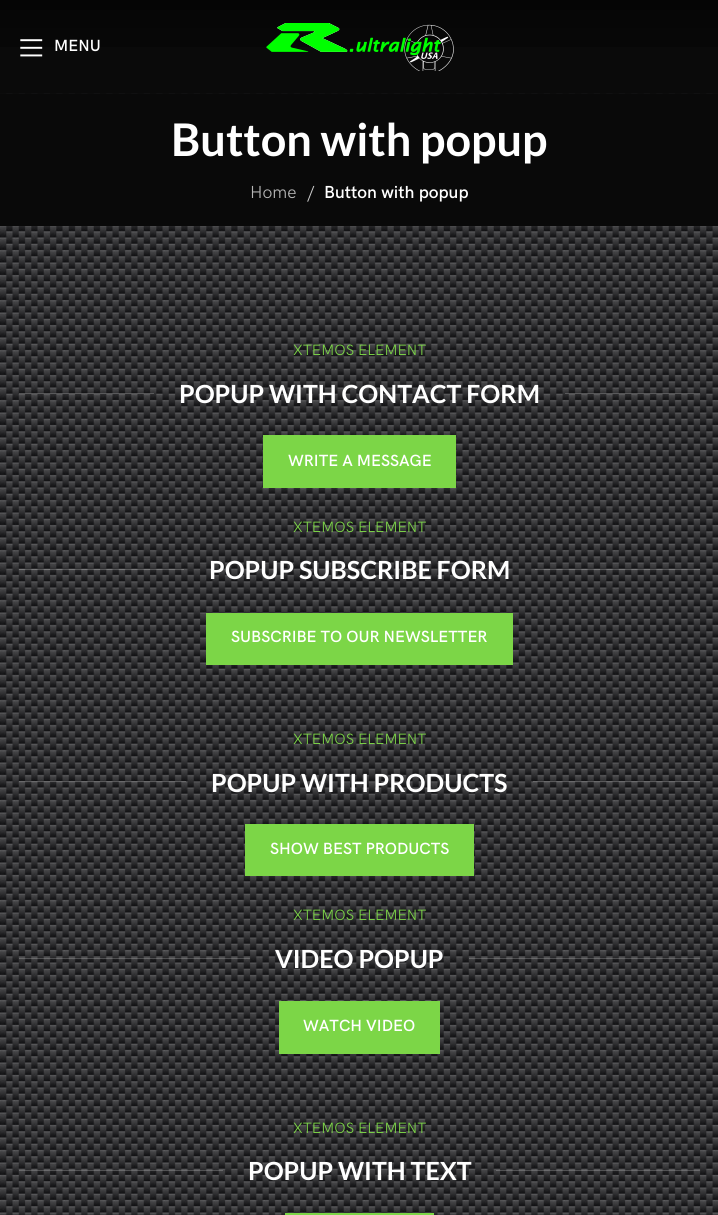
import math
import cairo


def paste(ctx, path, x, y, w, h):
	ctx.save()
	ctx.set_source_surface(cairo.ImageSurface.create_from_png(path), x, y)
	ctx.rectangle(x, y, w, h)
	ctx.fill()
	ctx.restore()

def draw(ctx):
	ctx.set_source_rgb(0.102, 0.102, 0.102)
	ctx.paint()
	paste(ctx, 'media/3.png', 0, 93, 718, 1122)
	ctx.set_source_rgba(0, 0, 0, 0.6)
	ctx.rectangle(0, 0, 718, 94)
	ctx.fill()
	gradient = cairo.LinearGradient(359, 94, 359, 0)
	gradient.add_color_stop_rgba(0, 0, 0, 0, 0)
	gradient.add_color_stop_rgba(1, 0, 0, 0, 0.5)
	ctx.set_source(gradient)
	ctx.rectangle(0, 0, 718, 47)
	ctx.fill()
	paste(ctx, 'media/1.png', 20, 39, 23, 18)
	ctx.select_font_face('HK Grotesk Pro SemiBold')
	ctx.set_font_size(16.25)
	ctx.set_source_rgb(1, 1, 1)
	ctx.move_to(54, 51)
	ctx.show_text('MENU')
	paste(ctx, 'media/2.png', 266, 23, 188, 48)
	ctx.set_source_rgb(0.039, 0.039, 0.039)
	ctx.rectangle(0, 94, 718, 132)
	ctx.fill()
	ctx.select_font_face('Lato', cairo.FONT_SLANT_NORMAL, cairo.FONT_WEIGHT_BOLD)
	ctx.set_font_size(45)
	ctx.set_source_rgb(1, 1, 1)
	ctx.move_to(171, 156)
	ctx.show_text('Button with popup')
	ctx.select_font_face('HK Grotesk Pro')
	ctx.set_font_size(17.5)
	ctx.set_source_rgb(0.714, 0.714, 0.714)
	ctx.move_to(250, 198)
	ctx.show_text('Home')
	ctx.set_source_rgb(0.808, 0.808, 0.808)
	ctx.move_to(307, 198)
	ctx.show_text('/')
	ctx.select_font_face('HK Grotesk Pro SemiBold')
	ctx.set_source_rgb(1, 1, 1)
	ctx.move_to(324, 198)
	ctx.show_text('Button with popup')
	ctx.select_font_face('HK Grotesk Pro')
	ctx.set_font_size(15)
	ctx.set_source_rgb(0.486, 0.839, 0.278)
	ctx.move_to(293, 355)
	ctx.show_text('XTEMOS ELEMENT')
	ctx.set_source_rgba(1, 1, 1, 0.2)
	ctx.rectangle(19, 393, 135, 1)
	ctx.fill()
	ctx.select_font_face('Lato', cairo.FONT_SLANT_NORMAL, cairo.FONT_WEIGHT_BOLD)
	ctx.set_font_size(25)
	ctx.set_source_rgb(1, 1, 1)
	ctx.move_to(179, 403)
	ctx.show_text('POPUP WITH CONTACT FORM')
	ctx.set_source_rgba(1, 1, 1, 0.2)
	ctx.rectangle(565, 393, 135, 1)
	ctx.fill()
	ctx.set_source_rgb(0.486, 0.839, 0.278)
	ctx.rectangle(263, 435, 193, 53)
	ctx.fill()
	ctx.select_font_face('HK Grotesk Pro SemiBold')
	ctx.set_font_size(16.25)
	ctx.set_source_rgb(1, 1, 1)
	ctx.move_to(288, 466)
	ctx.show_text('WRITE A MESSAGE')
	ctx.select_font_face('HK Grotesk Pro')
	ctx.set_font_size(15)
	ctx.set_source_rgb(0.486, 0.839, 0.278)
	ctx.move_to(293, 532)
	ctx.show_text('XTEMOS ELEMENT')
	ctx.set_source_rgba(1, 1, 1, 0.2)
	ctx.rectangle(19, 569, 165, 1)
	ctx.fill()
	ctx.select_font_face('Lato', cairo.FONT_SLANT_NORMAL, cairo.FONT_WEIGHT_BOLD)
	ctx.set_font_size(25)
	ctx.set_source_rgb(1, 1, 1)
	ctx.move_to(209, 579)
	ctx.show_text('POPUP SUBSCRIBE FORM')
	ctx.set_source_rgba(1, 1, 1, 0.2)
	ctx.rectangle(535, 569, 165, 1)
	ctx.fill()
	ctx.set_source_rgb(0.486, 0.839, 0.278)
	ctx.rectangle(206, 613, 307, 52)
	ctx.fill()
	ctx.select_font_face('HK Grotesk Pro SemiBold')
	ctx.set_font_size(16.25)
	ctx.set_source_rgb(1, 1, 1)
	ctx.move_to(231, 642)
	ctx.show_text('SUBSCRIBE TO OUR NEWSLETTER')
	ctx.select_font_face('HK Grotesk Pro')
	ctx.set_font_size(15)
	ctx.set_source_rgb(0.486, 0.839, 0.278)
	ctx.move_to(293, 744)
	ctx.show_text('XTEMOS ELEMENT')
	ctx.set_source_rgba(1, 1, 1, 0.2)
	ctx.rectangle(19, 781, 167, 1)
	ctx.fill()
	ctx.select_font_face('Lato', cairo.FONT_SLANT_NORMAL, cairo.FONT_WEIGHT_BOLD)
	ctx.set_font_size(25)
	ctx.set_source_rgb(1, 1, 1)
	ctx.move_to(211, 792)
	ctx.show_text('POPUP WITH PRODUCTS')
	ctx.set_source_rgba(1, 1, 1, 0.2)
	ctx.rectangle(533, 781, 167, 1)
	ctx.fill()
	ctx.set_source_rgb(0.486, 0.839, 0.278)
	ctx.rectangle(245, 824, 229, 52)
	ctx.fill()
	ctx.select_font_face('HK Grotesk Pro SemiBold')
	ctx.set_font_size(16.25)
	ctx.set_source_rgb(1, 1, 1)
	ctx.move_to(270, 854)
	ctx.show_text('SHOW BEST PRODUCTS')
	ctx.select_font_face('HK Grotesk Pro')
	ctx.set_font_size(15)
	ctx.set_source_rgb(0.486, 0.839, 0.278)
	ctx.move_to(293, 920)
	ctx.show_text('XTEMOS ELEMENT')
	ctx.set_source_rgba(1, 1, 1, 0.2)
	ctx.rectangle(19, 958, 231, 1)
	ctx.fill()
	ctx.select_font_face('Lato', cairo.FONT_SLANT_NORMAL, cairo.FONT_WEIGHT_BOLD)
	ctx.set_font_size(25)
	ctx.set_source_rgb(1, 1, 1)
	ctx.move_to(275, 968)
	ctx.show_text('VIDEO POPUP')
	ctx.set_source_rgba(1, 1, 1, 0.2)
	ctx.rectangle(469, 958, 231, 1)
	ctx.fill()
	ctx.set_source_rgb(0.486, 0.839, 0.278)
	ctx.rectangle(279, 1001, 161, 53)
	ctx.fill()
	ctx.select_font_face('HK Grotesk Pro SemiBold')
	ctx.set_font_size(16.25)
	ctx.set_source_rgb(1, 1, 1)
	ctx.move_to(303, 1031)
	ctx.show_text('WATCH VIDEO')
	ctx.select_font_face('HK Grotesk Pro')
	ctx.set_font_size(15)
	ctx.set_source_rgb(0.486, 0.839, 0.278)
	ctx.move_to(293, 1133)
	ctx.show_text('XTEMOS ELEMENT')
	ctx.set_source_rgba(1, 1, 1, 0.2)
	ctx.rectangle(19, 1170, 204, 1)
	ctx.fill()
	ctx.select_font_face('Lato', cairo.FONT_SLANT_NORMAL, cairo.FONT_WEIGHT_BOLD)
	ctx.set_font_size(25)
	ctx.set_source_rgb(1, 1, 1)
	ctx.move_to(248, 1180)
	ctx.show_text('POPUP WITH TEXT')
	ctx.set_source_rgba(1, 1, 1, 0.2)
	ctx.rectangle(496, 1170, 204, 1)
	ctx.fill()
	ctx.set_source_rgb(0.486, 0.839, 0.278)
	ctx.rectangle(285, 1213, 149, 2)
	ctx.fill()


surface = cairo.ImageSurface(cairo.FORMAT_RGB24, 718, 1215)
ctx = cairo.Context(surface)
options = cairo.FontOptions()
options.set_hint_metrics(cairo.HINT_METRICS_OFF)
options.set_hint_style(cairo.HINT_STYLE_NONE)
ctx.set_font_options(options)
ctx.set_miter_limit(4)
draw(ctx)
surface.write_to_png('image.png')
